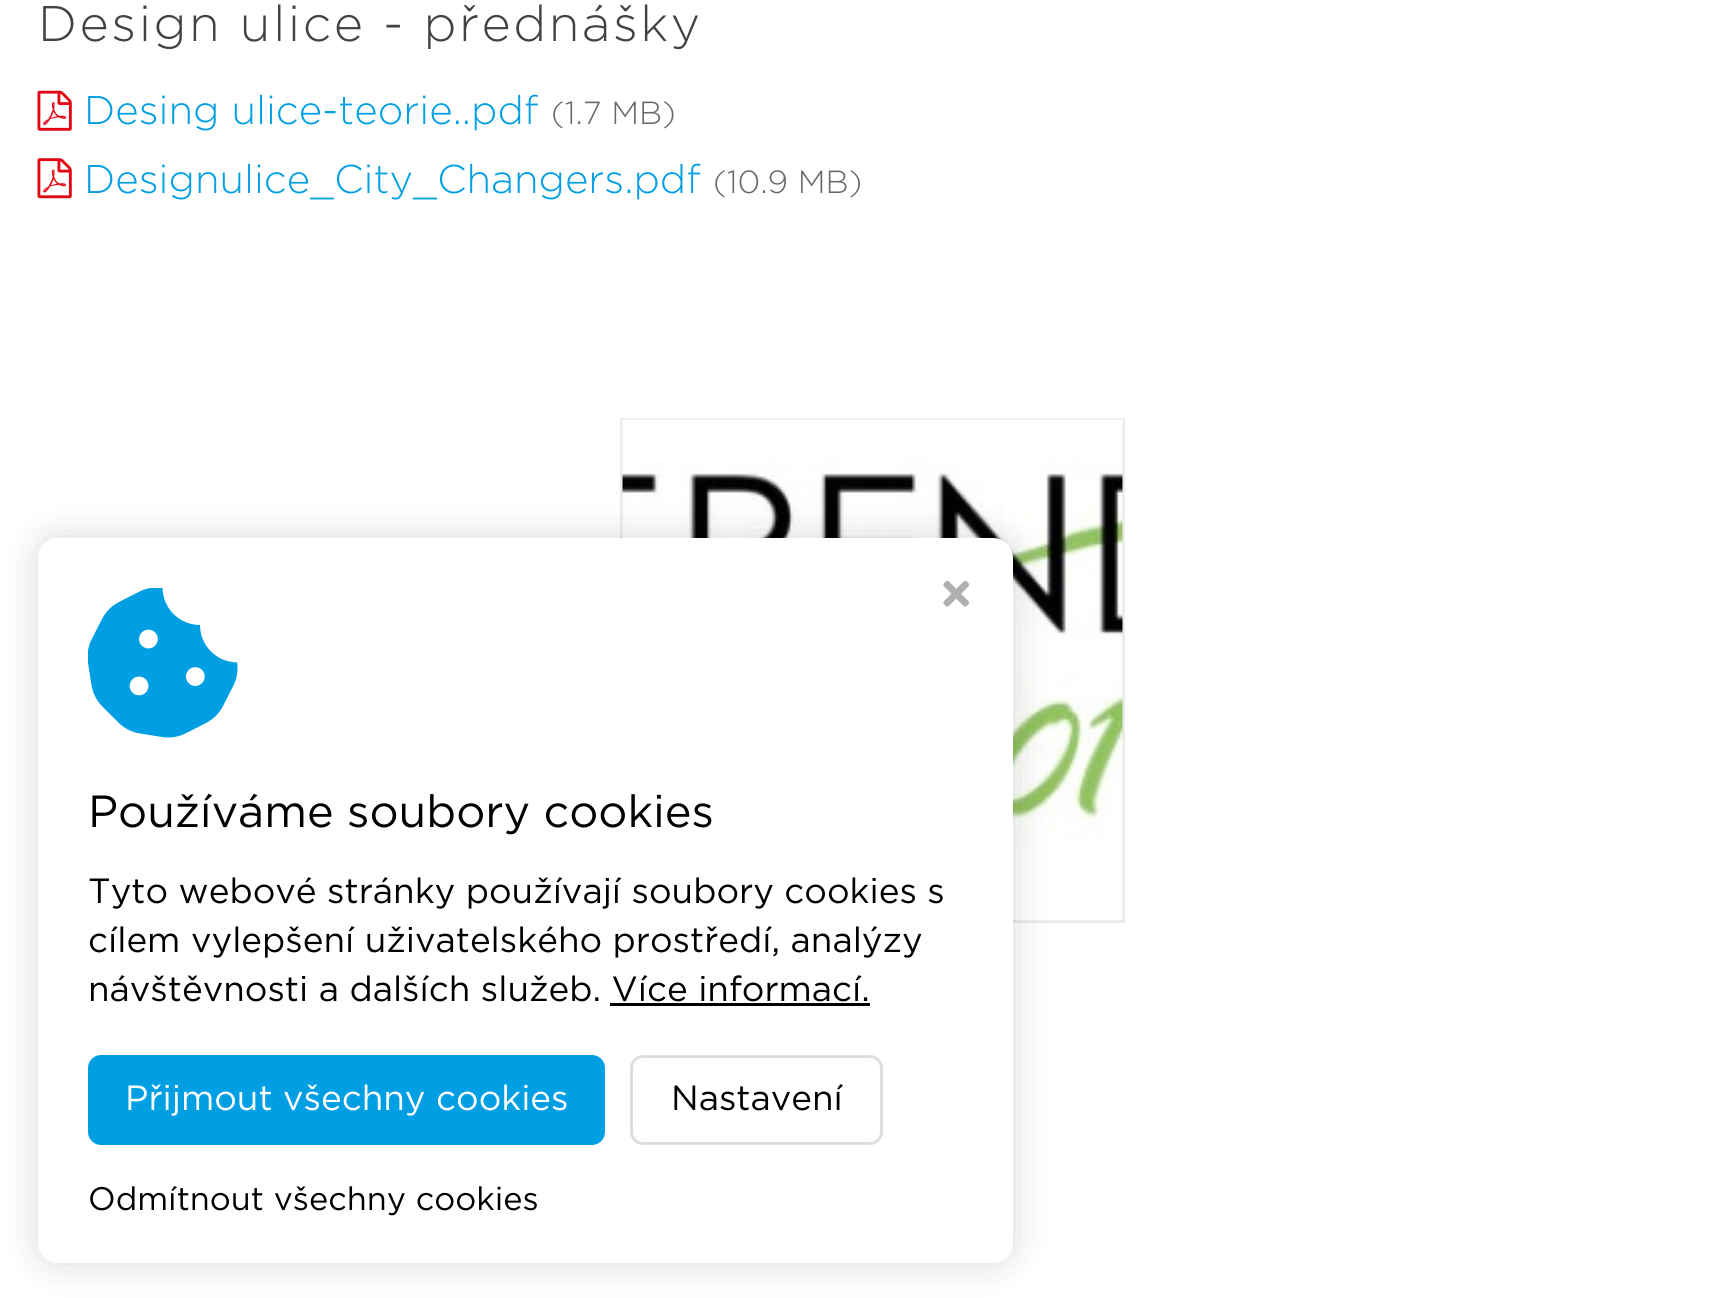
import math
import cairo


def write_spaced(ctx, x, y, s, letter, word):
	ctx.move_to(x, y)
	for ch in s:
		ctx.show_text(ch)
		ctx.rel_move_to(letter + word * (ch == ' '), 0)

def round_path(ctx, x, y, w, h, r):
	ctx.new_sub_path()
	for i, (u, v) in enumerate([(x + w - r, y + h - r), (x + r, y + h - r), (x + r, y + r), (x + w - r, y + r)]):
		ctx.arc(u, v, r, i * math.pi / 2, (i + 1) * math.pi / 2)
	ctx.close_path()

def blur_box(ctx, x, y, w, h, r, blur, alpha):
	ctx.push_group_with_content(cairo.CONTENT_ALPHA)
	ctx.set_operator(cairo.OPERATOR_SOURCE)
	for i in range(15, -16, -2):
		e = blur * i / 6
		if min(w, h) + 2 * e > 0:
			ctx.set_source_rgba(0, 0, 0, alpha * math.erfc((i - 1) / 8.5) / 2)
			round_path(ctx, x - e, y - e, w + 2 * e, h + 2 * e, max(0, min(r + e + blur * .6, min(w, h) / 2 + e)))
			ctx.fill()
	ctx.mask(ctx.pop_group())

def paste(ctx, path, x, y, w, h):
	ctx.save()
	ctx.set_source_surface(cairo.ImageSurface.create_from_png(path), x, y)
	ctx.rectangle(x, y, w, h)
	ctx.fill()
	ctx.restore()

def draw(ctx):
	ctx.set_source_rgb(1, 1, 1)
	ctx.paint()
	ctx.select_font_face('Gotham Light')
	ctx.set_font_size(50)
	ctx.set_source_rgb(0.259, 0.259, 0.259)
	write_spaced(ctx, 38, 41, 'Design ulice - přednášky', 2.5, 0)
	paste(ctx, 'media/1.png', 37, 90, 35, 41)
	ctx.set_font_size(40)
	ctx.set_source_rgb(0, 0.624, 0.89)
	ctx.move_to(84, 124)
	ctx.show_text('Desing ulice-teorie..pdf')
	ctx.set_font_size(32)
	ctx.set_source_rgb(0.408, 0.408, 0.408)
	ctx.move_to(551, 124)
	ctx.show_text('(1.7 MB)')
	paste(ctx, 'media/2.png', 37, 158, 35, 41)
	ctx.set_font_size(40)
	ctx.set_source_rgb(0, 0.624, 0.89)
	ctx.move_to(84, 193)
	ctx.show_text('Designulice_City_Changers.pdf')
	ctx.set_font_size(32)
	ctx.set_source_rgb(0.408, 0.408, 0.408)
	ctx.move_to(713, 193)
	ctx.show_text('(10.9 MB)')
	ctx.rectangle(621.5, 419.5, 502, 502)
	ctx.set_source_rgb(0.918, 0.918, 0.918)
	ctx.set_line_width(3)
	ctx.stroke()
	paste(ctx, 'media/3.png', 622, 419, 501, 501)
	ctx.set_source_rgb(0, 0, 0)
	blur_box(ctx, 38, 538, 975, 725, 20, 19, 0.15)
	ctx.set_source_rgb(1, 1, 1)
	round_path(ctx, 38, 538, 975, 725, 20)
	ctx.fill()
	paste(ctx, 'media/4.png', 88, 588, 150, 150)
	paste(ctx, 'media/5.png', 943, 580, 27, 27)
	ctx.select_font_face('Gotham')
	ctx.set_font_size(45)
	ctx.set_source_rgb(0, 0, 0)
	ctx.move_to(88, 827)
	ctx.show_text('Používáme soubory cookies')
	ctx.set_font_size(35)
	for x, y, s in [
		(88, 903, 'Tyto webové stránky používají soubory cookies s'),
		(88, 952, 'cílem vylepšení uživatelského prostředí, analýzy'),
		(88, 1001, 'návštěvnosti a dalších služeb. Více informací.'),
	]:
		ctx.move_to(x, y)
		ctx.show_text(s)
	ctx.rectangle(610, 1003, 260, 3)
	ctx.fill()
	ctx.set_source_rgb(0, 0.624, 0.89)
	round_path(ctx, 88, 1055, 517, 90, 13)
	ctx.fill()
	ctx.set_source_rgb(1, 1, 1)
	ctx.move_to(125, 1110)
	ctx.show_text('Přijmout všechny cookies')
	round_path(ctx, 631.5, 1056.5, 250, 87, 11.5)
	ctx.set_source_rgb(0.867, 0.867, 0.867)
	ctx.stroke()
	ctx.set_source_rgb(0, 0, 0)
	ctx.move_to(671, 1110)
	ctx.show_text('Nastavení')
	ctx.set_font_size(32.5)
	ctx.move_to(88, 1210)
	ctx.show_text('Odmítnout všechny cookies')


surface = cairo.ImageSurface(cairo.FORMAT_RGB24, 1736, 1298)
ctx = cairo.Context(surface)
options = cairo.FontOptions()
options.set_hint_metrics(cairo.HINT_METRICS_OFF)
options.set_hint_style(cairo.HINT_STYLE_NONE)
ctx.set_font_options(options)
ctx.set_miter_limit(4)
draw(ctx)
surface.write_to_png('image.png')
